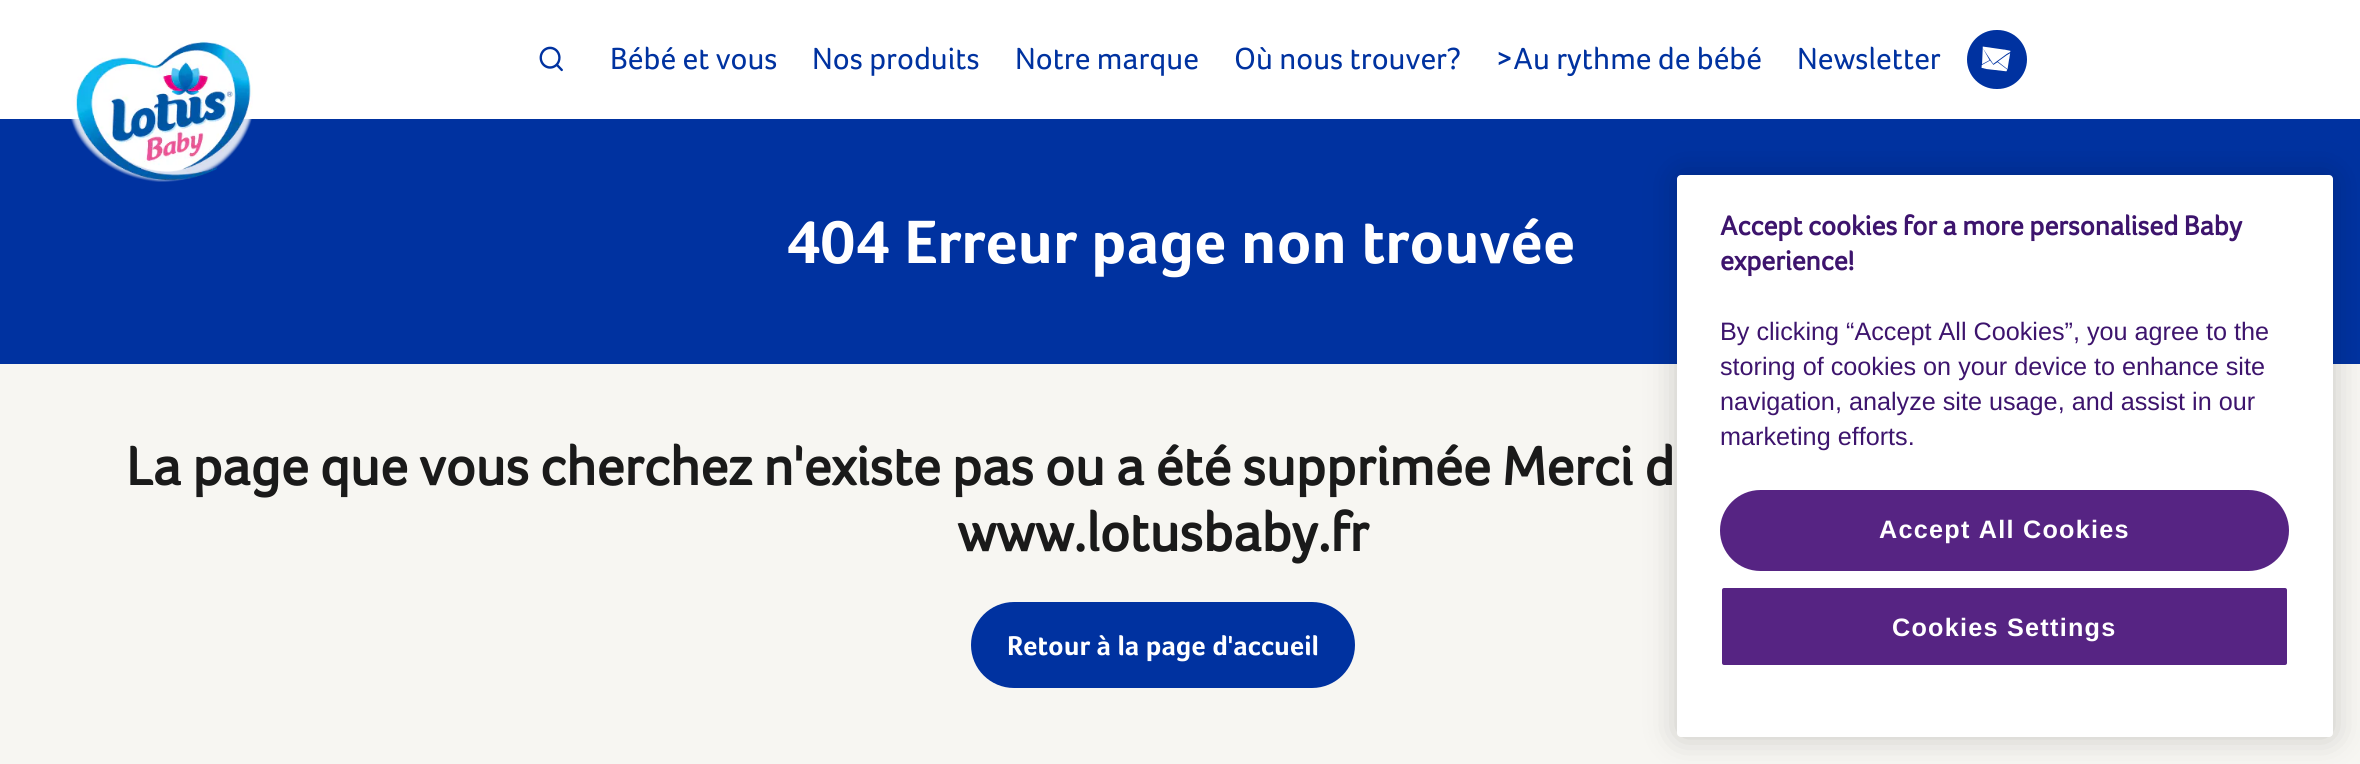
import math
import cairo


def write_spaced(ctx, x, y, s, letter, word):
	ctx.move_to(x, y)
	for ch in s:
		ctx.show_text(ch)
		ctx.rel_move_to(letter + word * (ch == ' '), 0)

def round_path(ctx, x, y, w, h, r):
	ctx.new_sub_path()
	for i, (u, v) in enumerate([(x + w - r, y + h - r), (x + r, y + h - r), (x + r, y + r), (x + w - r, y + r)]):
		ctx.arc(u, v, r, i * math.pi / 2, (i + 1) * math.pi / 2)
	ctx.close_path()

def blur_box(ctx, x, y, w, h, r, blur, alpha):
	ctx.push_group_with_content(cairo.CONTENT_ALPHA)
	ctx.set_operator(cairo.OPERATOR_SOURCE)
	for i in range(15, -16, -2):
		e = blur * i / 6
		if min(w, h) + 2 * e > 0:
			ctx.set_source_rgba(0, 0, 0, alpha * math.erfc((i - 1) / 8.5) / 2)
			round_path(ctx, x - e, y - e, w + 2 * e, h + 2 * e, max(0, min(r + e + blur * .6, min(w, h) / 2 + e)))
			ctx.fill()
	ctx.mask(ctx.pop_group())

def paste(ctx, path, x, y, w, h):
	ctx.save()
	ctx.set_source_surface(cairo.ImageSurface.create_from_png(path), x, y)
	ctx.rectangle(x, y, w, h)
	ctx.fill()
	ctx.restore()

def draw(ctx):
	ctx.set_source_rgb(0.965, 0.961, 0.949)
	ctx.paint()
	ctx.set_source_rgb(1, 1, 1)
	ctx.rectangle(0, 0, 2360, 119)
	ctx.fill()
	ctx.set_source_rgb(0, 0.196, 0.627)
	ctx.rectangle(0, 119, 2360, 245)
	ctx.fill()
	paste(ctx, 'media/1.png', 70, 40, 183, 142)
	paste(ctx, 'media/2.png', 539, 46, 24, 26)
	ctx.select_font_face('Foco')
	ctx.set_font_size(31.5)
	for x, y, s in [
		(610, 69, 'Bébé et vous'),
		(812, 69, 'Nos produits'),
		(1015, 69, 'Notre marque'),
		(1234, 69, 'Où nous trouver?'),
		(1496, 69, '>Au rythme de bébé'),
		(1797, 69, 'Newsletter'),
	]:
		ctx.move_to(x, y)
		ctx.show_text(s)
	round_path(ctx, 1967, 30, 60, 59, 29.5)
	ctx.fill()
	paste(ctx, 'media/3.png', 1981, 46, 30, 26)
	ctx.select_font_face('Foco', cairo.FONT_SLANT_NORMAL, cairo.FONT_WEIGHT_BOLD)
	ctx.set_font_size(63)
	ctx.set_source_rgb(1, 1, 1)
	ctx.move_to(786, 263)
	ctx.show_text('404 Erreur page non trouvée')
	ctx.select_font_face('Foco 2', cairo.FONT_SLANT_NORMAL, cairo.FONT_WEIGHT_BOLD)
	ctx.set_font_size(56)
	ctx.set_source_rgb(0.102, 0.102, 0.102)
	ctx.move_to(126, 485)
	ctx.show_text('La page que vous cherchez n\'existe pas ou a été supprimée Merci d')
	ctx.move_to(957, 551)
	ctx.show_text('www.lotusbaby.fr')
	ctx.set_source_rgb(0, 0.196, 0.627)
	round_path(ctx, 971, 602, 384, 86, 43)
	ctx.fill()
	ctx.select_font_face('Foco', cairo.FONT_SLANT_NORMAL, cairo.FONT_WEIGHT_BOLD)
	ctx.set_font_size(28)
	ctx.set_source_rgb(1, 1, 1)
	ctx.move_to(1007, 655)
	ctx.show_text('Retour à la page d\'accueil')
	ctx.set_source_rgb(0, 0, 0)
	blur_box(ctx, 1677, 175, 656, 562, 4, 16, 0.2)
	ctx.set_source_rgb(1, 1, 1)
	round_path(ctx, 1677, 175, 656, 562, 4)
	ctx.fill()
	ctx.select_font_face('Foco 2', cairo.FONT_SLANT_NORMAL, cairo.FONT_WEIGHT_BOLD)
	ctx.set_source_rgb(0.239, 0.082, 0.427)
	ctx.move_to(1720, 235)
	ctx.show_text('Accept cookies for a more personalised Baby')
	ctx.move_to(1720, 270)
	ctx.show_text('experience!')
	ctx.select_font_face('Liberation Sans')
	ctx.set_font_size(25.2)
	for x, y, s in [
		(1720, 340, 'By clicking “Accept All Cookies”, you agree to the'),
		(1720, 375, 'storing of cookies on your device to enhance site'),
		(1720, 410, 'navigation, analyze site usage, and assist in our'),
		(1720, 445, 'marketing efforts.'),
	]:
		ctx.move_to(x, y)
		ctx.show_text(s)
	ctx.set_source_rgb(0.337, 0.141, 0.514)
	round_path(ctx, 1721, 491, 567, 79, 39.5)
	ctx.fill_preserve()
	ctx.stroke()
	ctx.select_font_face('Liberation Sans', cairo.FONT_SLANT_NORMAL, cairo.FONT_WEIGHT_BOLD)
	ctx.set_source_rgb(1, 1, 1)
	write_spaced(ctx, 1879, 538, 'Accept All Cookies', 1.25, 0)
	ctx.set_source_rgb(0.337, 0.141, 0.514)
	round_path(ctx, 1721, 587, 567, 79, 3)
	ctx.fill_preserve()
	ctx.set_source_rgb(1, 1, 1)
	ctx.stroke()
	write_spaced(ctx, 1892, 636, 'Cookies Settings', 1.25, 0)


surface = cairo.ImageSurface(cairo.FORMAT_RGB24, 2360, 764)
ctx = cairo.Context(surface)
options = cairo.FontOptions()
options.set_hint_metrics(cairo.HINT_METRICS_OFF)
options.set_hint_style(cairo.HINT_STYLE_NONE)
ctx.set_font_options(options)
ctx.set_miter_limit(4)
draw(ctx)
surface.write_to_png('image.png')
